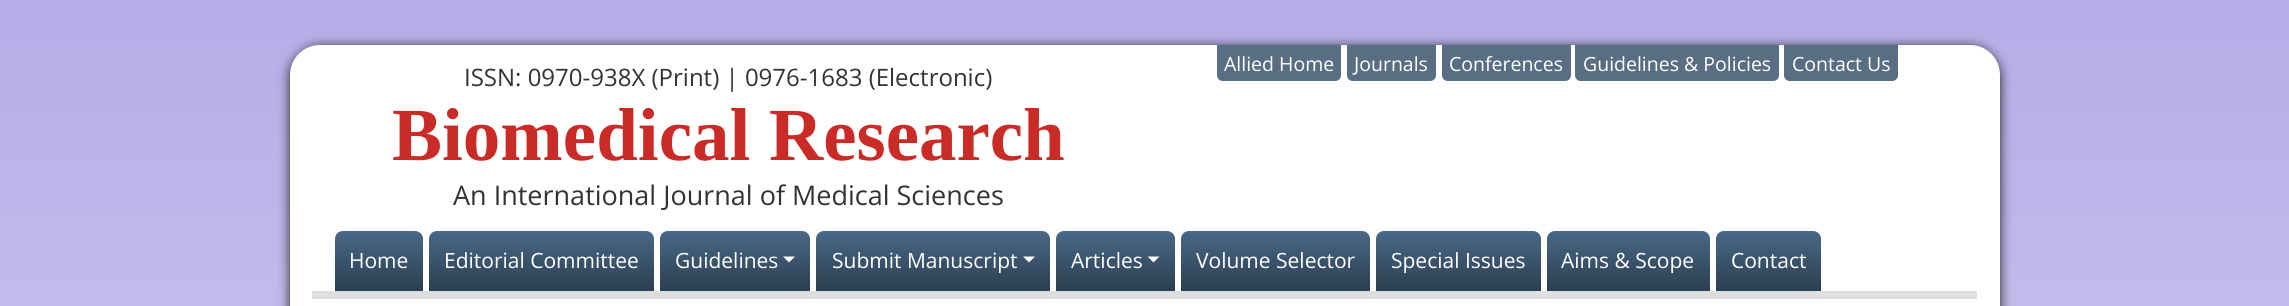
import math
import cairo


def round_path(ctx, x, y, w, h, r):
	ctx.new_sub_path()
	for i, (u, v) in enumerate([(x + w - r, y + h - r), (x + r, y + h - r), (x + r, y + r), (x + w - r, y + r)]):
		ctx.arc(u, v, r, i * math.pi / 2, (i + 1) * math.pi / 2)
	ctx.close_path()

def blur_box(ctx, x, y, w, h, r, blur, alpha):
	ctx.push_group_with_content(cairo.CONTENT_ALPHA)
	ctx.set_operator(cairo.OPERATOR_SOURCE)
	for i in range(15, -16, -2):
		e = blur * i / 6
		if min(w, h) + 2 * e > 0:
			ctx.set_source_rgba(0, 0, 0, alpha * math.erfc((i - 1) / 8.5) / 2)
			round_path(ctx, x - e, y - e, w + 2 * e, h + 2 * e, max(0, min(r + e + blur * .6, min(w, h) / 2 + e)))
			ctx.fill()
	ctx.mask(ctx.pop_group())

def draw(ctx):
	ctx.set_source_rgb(1, 1, 1)
	ctx.paint()
	gradient = cairo.LinearGradient(1145, 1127, 1145, 0)
	gradient.add_color_stop_rgba(0, 0.89, 0.882, 0.933, 1)
	gradient.add_color_stop_rgba(1, 0.714, 0.675, 0.914, 1)
	ctx.set_source(gradient)
	ctx.rectangle(0, 0, 2289, 306)
	ctx.fill()
	ctx.set_source_rgb(0.125, 0.125, 0.125)
	blur_box(ctx, 290, 47, 1710, 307, 30, 6, 1)
	ctx.set_source_rgb(1, 1, 1)
	round_path(ctx, 290, 45, 1710, 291, 30)
	ctx.fill()
	ctx.set_source_rgb(0.871, 0.871, 0.871)
	ctx.rectangle(312, 291, 1665, 8)
	ctx.fill()
	ctx.select_font_face('Open Sans')
	ctx.set_font_size(24)
	ctx.set_source_rgb(0.2, 0.2, 0.2)
	ctx.move_to(464, 86)
	ctx.show_text('ISSN: 0970-938X (Print) | 0976-1683 (Electronic)')
	ctx.select_font_face('Liberation Serif', cairo.FONT_SLANT_NORMAL, cairo.FONT_WEIGHT_BOLD)
	ctx.set_font_size(75)
	ctx.set_source_rgb(0.792, 0.169, 0.153)
	ctx.move_to(392, 160)
	ctx.show_text('Biomedical Research')
	ctx.select_font_face('Open Sans')
	ctx.set_font_size(27)
	ctx.set_source_rgb(0.2, 0.2, 0.2)
	ctx.move_to(453, 205)
	ctx.show_text('An International Journal of Medical Sciences')
	ctx.set_source_rgb(0.349, 0.431, 0.514)
	ctx.new_path()
	ctx.move_to(1217, 45)
	ctx.line_to(1341, 45)
	ctx.line_to(1341, 75)
	ctx.curve_to(1341, 78.5, 1338.5, 81, 1335, 81)
	ctx.line_to(1223, 81)
	ctx.curve_to(1219.5, 81, 1217, 78.5, 1217, 75)
	ctx.close_path()
	ctx.fill()
	ctx.set_font_size(19.5)
	ctx.set_source_rgb(1, 1, 1)
	ctx.move_to(1224, 71)
	ctx.show_text('Allied Home')
	ctx.set_source_rgb(0.349, 0.431, 0.514)
	ctx.new_path()
	ctx.move_to(1347, 45)
	ctx.line_to(1436, 45)
	ctx.line_to(1436, 75)
	ctx.curve_to(1436, 78.5, 1433.5, 81, 1430, 81)
	ctx.line_to(1353, 81)
	ctx.curve_to(1349.5, 81, 1347, 78.5, 1347, 75)
	ctx.close_path()
	ctx.fill()
	ctx.set_source_rgb(1, 1, 1)
	ctx.move_to(1354, 71)
	ctx.show_text('Journals')
	ctx.set_source_rgb(0.349, 0.431, 0.514)
	ctx.new_path()
	ctx.move_to(1442, 45)
	ctx.line_to(1571, 45)
	ctx.line_to(1571, 75)
	ctx.curve_to(1571, 78.5, 1568.5, 81, 1565, 81)
	ctx.line_to(1448, 81)
	ctx.curve_to(1444.5, 81, 1442, 78.5, 1442, 75)
	ctx.close_path()
	ctx.fill()
	ctx.set_source_rgb(1, 1, 1)
	ctx.move_to(1449, 71)
	ctx.show_text('Conferences')
	ctx.set_source_rgb(0.349, 0.431, 0.514)
	ctx.new_path()
	ctx.move_to(1575, 45)
	ctx.line_to(1779, 45)
	ctx.line_to(1779, 75)
	ctx.curve_to(1779, 78.5, 1776.5, 81, 1773, 81)
	ctx.line_to(1581, 81)
	ctx.curve_to(1577.5, 81, 1575, 78.5, 1575, 75)
	ctx.close_path()
	ctx.fill()
	ctx.set_source_rgb(1, 1, 1)
	ctx.move_to(1583, 71)
	ctx.show_text('Guidelines & Policies')
	ctx.set_source_rgb(0.349, 0.431, 0.514)
	ctx.new_path()
	ctx.move_to(1784, 45)
	ctx.line_to(1898, 45)
	ctx.line_to(1898, 75)
	ctx.curve_to(1898, 78.5, 1895.5, 81, 1892, 81)
	ctx.line_to(1790, 81)
	ctx.curve_to(1786.5, 81, 1784, 78.5, 1784, 75)
	ctx.close_path()
	ctx.fill()
	ctx.set_source_rgb(1, 1, 1)
	ctx.move_to(1792, 71)
	ctx.show_text('Contact Us')
	gradient = cairo.LinearGradient(379, 291, 379, 231)
	gradient.add_color_stop_rgba(0, 0.173, 0.247, 0.318, 1)
	gradient.add_color_stop_rgba(1, 0.286, 0.408, 0.529, 1)
	ctx.set_source(gradient)
	ctx.new_path()
	ctx.move_to(343, 231)
	ctx.line_to(415, 231)
	ctx.curve_to(419.5, 231, 423, 234.5, 423, 239)
	ctx.line_to(423, 291)
	ctx.line_to(335, 291)
	ctx.line_to(335, 239)
	ctx.curve_to(335, 234.5, 338.5, 231, 343, 231)
	ctx.close_path()
	ctx.fill()
	ctx.set_font_size(21)
	ctx.set_source_rgb(1, 1, 1)
	ctx.move_to(349, 268)
	ctx.show_text('Home')
	gradient = cairo.LinearGradient(542, 291, 542, 231)
	gradient.add_color_stop_rgba(0, 0.173, 0.247, 0.318, 1)
	gradient.add_color_stop_rgba(1, 0.286, 0.408, 0.529, 1)
	ctx.set_source(gradient)
	ctx.new_path()
	ctx.move_to(437, 231)
	ctx.line_to(646, 231)
	ctx.curve_to(650.5, 231, 654, 234.5, 654, 239)
	ctx.line_to(654, 291)
	ctx.line_to(429, 291)
	ctx.line_to(429, 239)
	ctx.curve_to(429, 234.5, 432.5, 231, 437, 231)
	ctx.close_path()
	ctx.fill()
	ctx.set_source_rgb(1, 1, 1)
	ctx.move_to(444, 268)
	ctx.show_text('Editorial Committee')
	gradient = cairo.LinearGradient(735, 291, 735, 231)
	gradient.add_color_stop_rgba(0, 0.173, 0.247, 0.318, 1)
	gradient.add_color_stop_rgba(1, 0.286, 0.408, 0.529, 1)
	ctx.set_source(gradient)
	ctx.new_path()
	ctx.move_to(668, 231)
	ctx.line_to(802, 231)
	ctx.curve_to(806.5, 231, 810, 234.5, 810, 239)
	ctx.line_to(810, 291)
	ctx.line_to(660, 291)
	ctx.line_to(660, 239)
	ctx.curve_to(660, 234.5, 663.5, 231, 668, 231)
	ctx.close_path()
	ctx.fill()
	ctx.set_source_rgb(1, 1, 1)
	ctx.move_to(675, 268)
	ctx.show_text('Guidelines')
	ctx.new_path()
	ctx.move_to(783, 256.5)
	ctx.line_to(795, 256.5)
	ctx.line_to(789, 262.5)
	ctx.close_path()
	ctx.fill()
	gradient = cairo.LinearGradient(933, 291, 933, 231)
	gradient.add_color_stop_rgba(0, 0.173, 0.247, 0.318, 1)
	gradient.add_color_stop_rgba(1, 0.286, 0.408, 0.529, 1)
	ctx.set_source(gradient)
	ctx.new_path()
	ctx.move_to(824, 231)
	ctx.line_to(1042, 231)
	ctx.curve_to(1046.5, 231, 1050, 234.5, 1050, 239)
	ctx.line_to(1050, 291)
	ctx.line_to(816, 291)
	ctx.line_to(816, 239)
	ctx.curve_to(816, 234.5, 819.5, 231, 824, 231)
	ctx.close_path()
	ctx.fill()
	ctx.set_source_rgb(1, 1, 1)
	ctx.move_to(832, 268)
	ctx.show_text('Submit Manuscript')
	ctx.new_path()
	ctx.move_to(1023, 256.5)
	ctx.line_to(1035, 256.5)
	ctx.line_to(1029, 262.5)
	ctx.close_path()
	ctx.fill()
	gradient = cairo.LinearGradient(1115, 291, 1115, 231)
	gradient.add_color_stop_rgba(0, 0.173, 0.247, 0.318, 1)
	gradient.add_color_stop_rgba(1, 0.286, 0.408, 0.529, 1)
	ctx.set_source(gradient)
	ctx.new_path()
	ctx.move_to(1064, 231)
	ctx.line_to(1167, 231)
	ctx.curve_to(1171.5, 231, 1175, 234.5, 1175, 239)
	ctx.line_to(1175, 291)
	ctx.line_to(1056, 291)
	ctx.line_to(1056, 239)
	ctx.curve_to(1056, 234.5, 1059.5, 231, 1064, 231)
	ctx.close_path()
	ctx.fill()
	ctx.set_source_rgb(1, 1, 1)
	ctx.move_to(1071, 268)
	ctx.show_text('Articles')
	ctx.new_path()
	ctx.move_to(1147.5, 256.5)
	ctx.line_to(1159.5, 256.5)
	ctx.line_to(1153.5, 262.5)
	ctx.close_path()
	ctx.fill()
	gradient = cairo.LinearGradient(1275, 291, 1275, 231)
	gradient.add_color_stop_rgba(0, 0.173, 0.247, 0.318, 1)
	gradient.add_color_stop_rgba(1, 0.286, 0.408, 0.529, 1)
	ctx.set_source(gradient)
	ctx.new_path()
	ctx.move_to(1189, 231)
	ctx.line_to(1362, 231)
	ctx.curve_to(1366.5, 231, 1370, 234.5, 1370, 239)
	ctx.line_to(1370, 291)
	ctx.line_to(1181, 291)
	ctx.line_to(1181, 239)
	ctx.curve_to(1181, 234.5, 1184.5, 231, 1189, 231)
	ctx.close_path()
	ctx.fill()
	ctx.set_source_rgb(1, 1, 1)
	ctx.move_to(1196, 268)
	ctx.show_text('Volume Selector')
	gradient = cairo.LinearGradient(1458, 291, 1458, 231)
	gradient.add_color_stop_rgba(0, 0.173, 0.247, 0.318, 1)
	gradient.add_color_stop_rgba(1, 0.286, 0.408, 0.529, 1)
	ctx.set_source(gradient)
	ctx.new_path()
	ctx.move_to(1384, 231)
	ctx.line_to(1533, 231)
	ctx.curve_to(1537.5, 231, 1541, 234.5, 1541, 239)
	ctx.line_to(1541, 291)
	ctx.line_to(1376, 291)
	ctx.line_to(1376, 239)
	ctx.curve_to(1376, 234.5, 1379.5, 231, 1384, 231)
	ctx.close_path()
	ctx.fill()
	ctx.set_source_rgb(1, 1, 1)
	ctx.move_to(1391, 268)
	ctx.show_text('Special Issues')
	gradient = cairo.LinearGradient(1628, 291, 1628, 231)
	gradient.add_color_stop_rgba(0, 0.173, 0.247, 0.318, 1)
	gradient.add_color_stop_rgba(1, 0.286, 0.408, 0.529, 1)
	ctx.set_source(gradient)
	ctx.new_path()
	ctx.move_to(1555, 231)
	ctx.line_to(1702, 231)
	ctx.curve_to(1706.5, 231, 1710, 234.5, 1710, 239)
	ctx.line_to(1710, 291)
	ctx.line_to(1547, 291)
	ctx.line_to(1547, 239)
	ctx.curve_to(1547, 234.5, 1550.5, 231, 1555, 231)
	ctx.close_path()
	ctx.fill()
	ctx.set_source_rgb(1, 1, 1)
	ctx.move_to(1561, 268)
	ctx.show_text('Aims & Scope')
	gradient = cairo.LinearGradient(1769, 291, 1769, 231)
	gradient.add_color_stop_rgba(0, 0.173, 0.247, 0.318, 1)
	gradient.add_color_stop_rgba(1, 0.286, 0.408, 0.529, 1)
	ctx.set_source(gradient)
	ctx.new_path()
	ctx.move_to(1724, 231)
	ctx.line_to(1813, 231)
	ctx.curve_to(1817.5, 231, 1821, 234.5, 1821, 239)
	ctx.line_to(1821, 291)
	ctx.line_to(1716, 291)
	ctx.line_to(1716, 239)
	ctx.curve_to(1716, 234.5, 1719.5, 231, 1724, 231)
	ctx.close_path()
	ctx.fill()
	ctx.set_source_rgb(1, 1, 1)
	ctx.move_to(1731, 268)
	ctx.show_text('Contact')


surface = cairo.ImageSurface(cairo.FORMAT_RGB24, 2289, 306)
ctx = cairo.Context(surface)
options = cairo.FontOptions()
options.set_hint_metrics(cairo.HINT_METRICS_OFF)
options.set_hint_style(cairo.HINT_STYLE_NONE)
ctx.set_font_options(options)
ctx.set_miter_limit(4)
draw(ctx)
surface.write_to_png('image.png')
